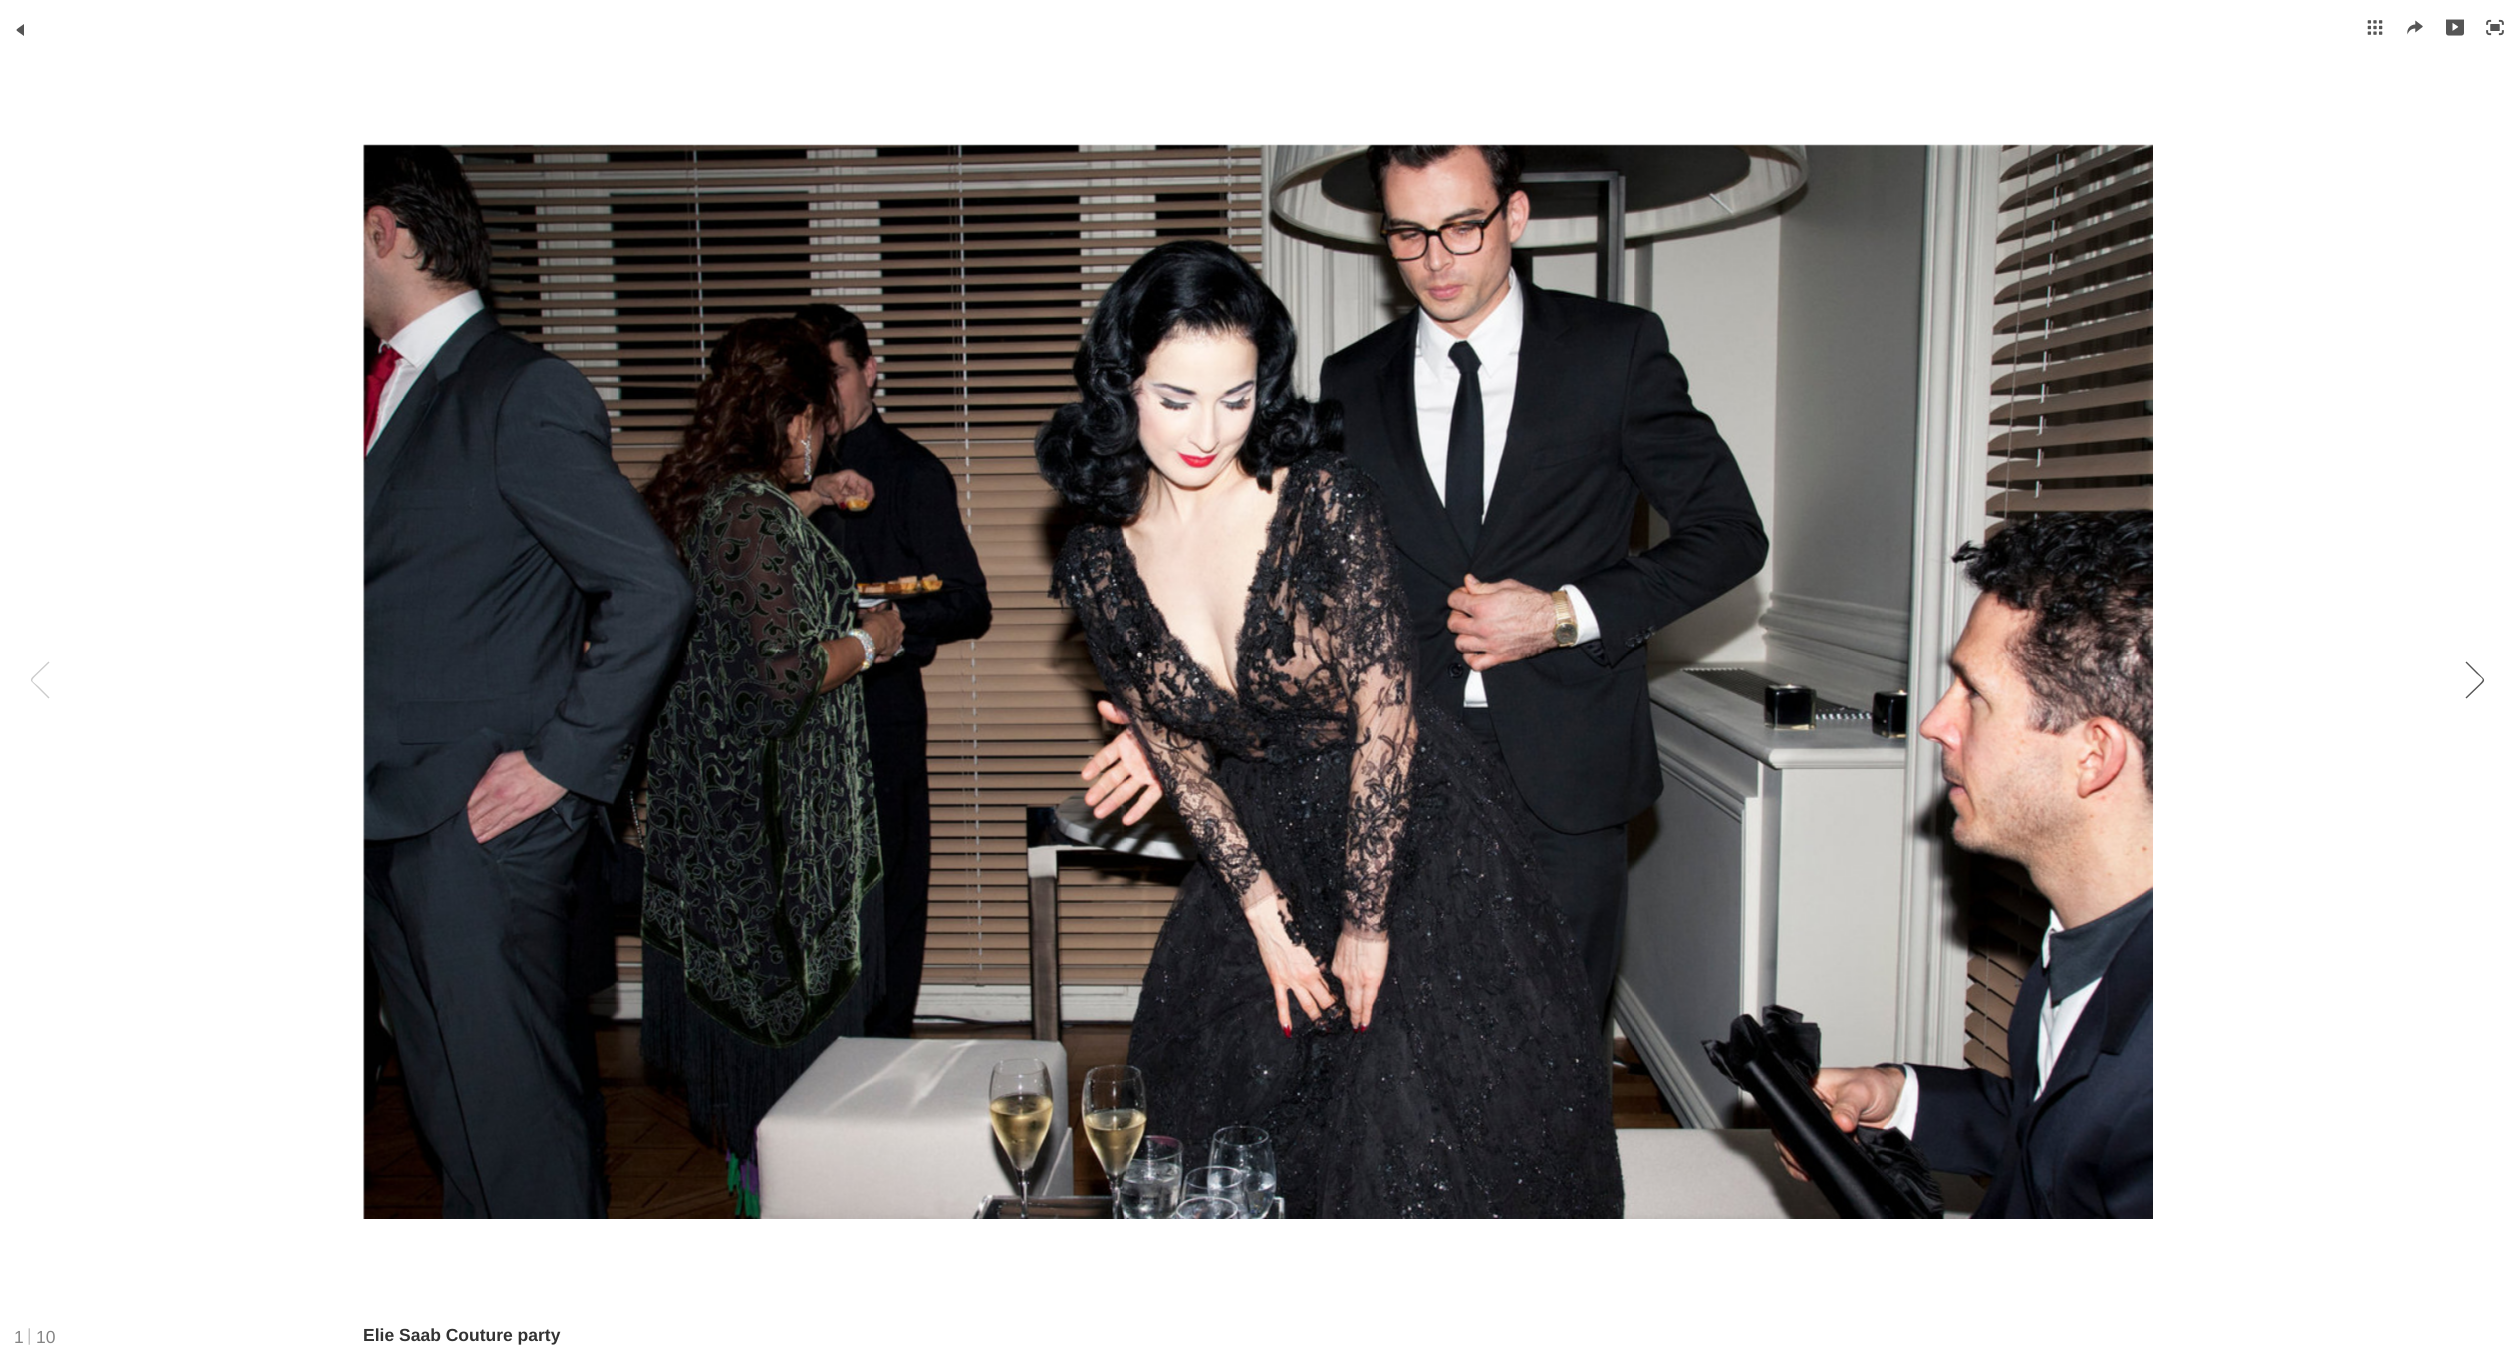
import math
import cairo


def paste(ctx, path, x, y, w, h):
	ctx.save()
	ctx.set_source_surface(cairo.ImageSurface.create_from_png(path), x, y)
	ctx.rectangle(x, y, w, h)
	ctx.fill()
	ctx.restore()

def draw(ctx):
	ctx.set_source_rgb(1, 1, 1)
	ctx.paint()
	ctx.set_source_rgb(0.333, 0.333, 0.333)
	ctx.new_path()
	ctx.move_to(24, 36)
	ctx.curve_to(14, 28.5, 14, 31.5, 24, 24)
	ctx.close_path()
	ctx.fill()
	paste(ctx, 'media/1.png', 2367, 20, 16, 15)
	paste(ctx, 'media/2.png', 2407, 20, 16, 15)
	paste(ctx, 'media/3.png', 2446, 19, 18, 17)
	paste(ctx, 'media/4.png', 2486, 19, 18, 17)
	ctx.set_source_rgb(0.8, 0.8, 0.8)
	ctx.new_path()
	ctx.move_to(48.5, 698.5)
	ctx.line_to(31.5, 681.5)
	ctx.curve_to(29.5, 679, 33, 676.5, 34.5, 675)
	ctx.line_to(48.5, 661.5)
	ctx.line_to(49.5, 662.5)
	ctx.line_to(35.5, 676)
	ctx.curve_to(30, 681.5, 32, 680.5, 38.5, 686.5)
	ctx.line_to(49.5, 697.5)
	ctx.close_path()
	ctx.fill()
	paste(ctx, 'media/5.png', 363, 144, 1790, 1075)
	ctx.set_source_rgb(0.333, 0.333, 0.333)
	ctx.new_path()
	ctx.move_to(2466.5, 661.5)
	ctx.line_to(2483.5, 678.5)
	ctx.curve_to(2485.5, 681, 2482, 683.5, 2480.5, 685)
	ctx.line_to(2466.5, 698.5)
	ctx.line_to(2465.5, 697.5)
	ctx.line_to(2479.5, 684)
	ctx.curve_to(2485, 678.5, 2483, 679.5, 2476.5, 673.5)
	ctx.line_to(2465.5, 662.5)
	ctx.close_path()
	ctx.fill()
	ctx.select_font_face('Liberation Sans')
	ctx.set_font_size(17.5)
	ctx.set_source_rgb(0.522, 0.522, 0.522)
	ctx.move_to(14, 1343)
	ctx.show_text('1')
	ctx.set_source_rgb(0.761, 0.761, 0.761)
	ctx.move_to(27, 1341)
	ctx.show_text('|')
	ctx.set_source_rgb(0.522, 0.522, 0.522)
	ctx.move_to(36, 1343)
	ctx.show_text('10')
	ctx.select_font_face('Liberation Sans', cairo.FONT_SLANT_NORMAL, cairo.FONT_WEIGHT_BOLD)
	ctx.set_source_rgb(0.2, 0.2, 0.2)
	ctx.move_to(363, 1341)
	ctx.show_text('Elie Saab Couture party')


surface = cairo.ImageSurface(cairo.FORMAT_RGB24, 2514, 1362)
ctx = cairo.Context(surface)
options = cairo.FontOptions()
options.set_hint_metrics(cairo.HINT_METRICS_OFF)
options.set_hint_style(cairo.HINT_STYLE_NONE)
ctx.set_font_options(options)
ctx.set_miter_limit(4)
draw(ctx)
surface.write_to_png('image.png')
